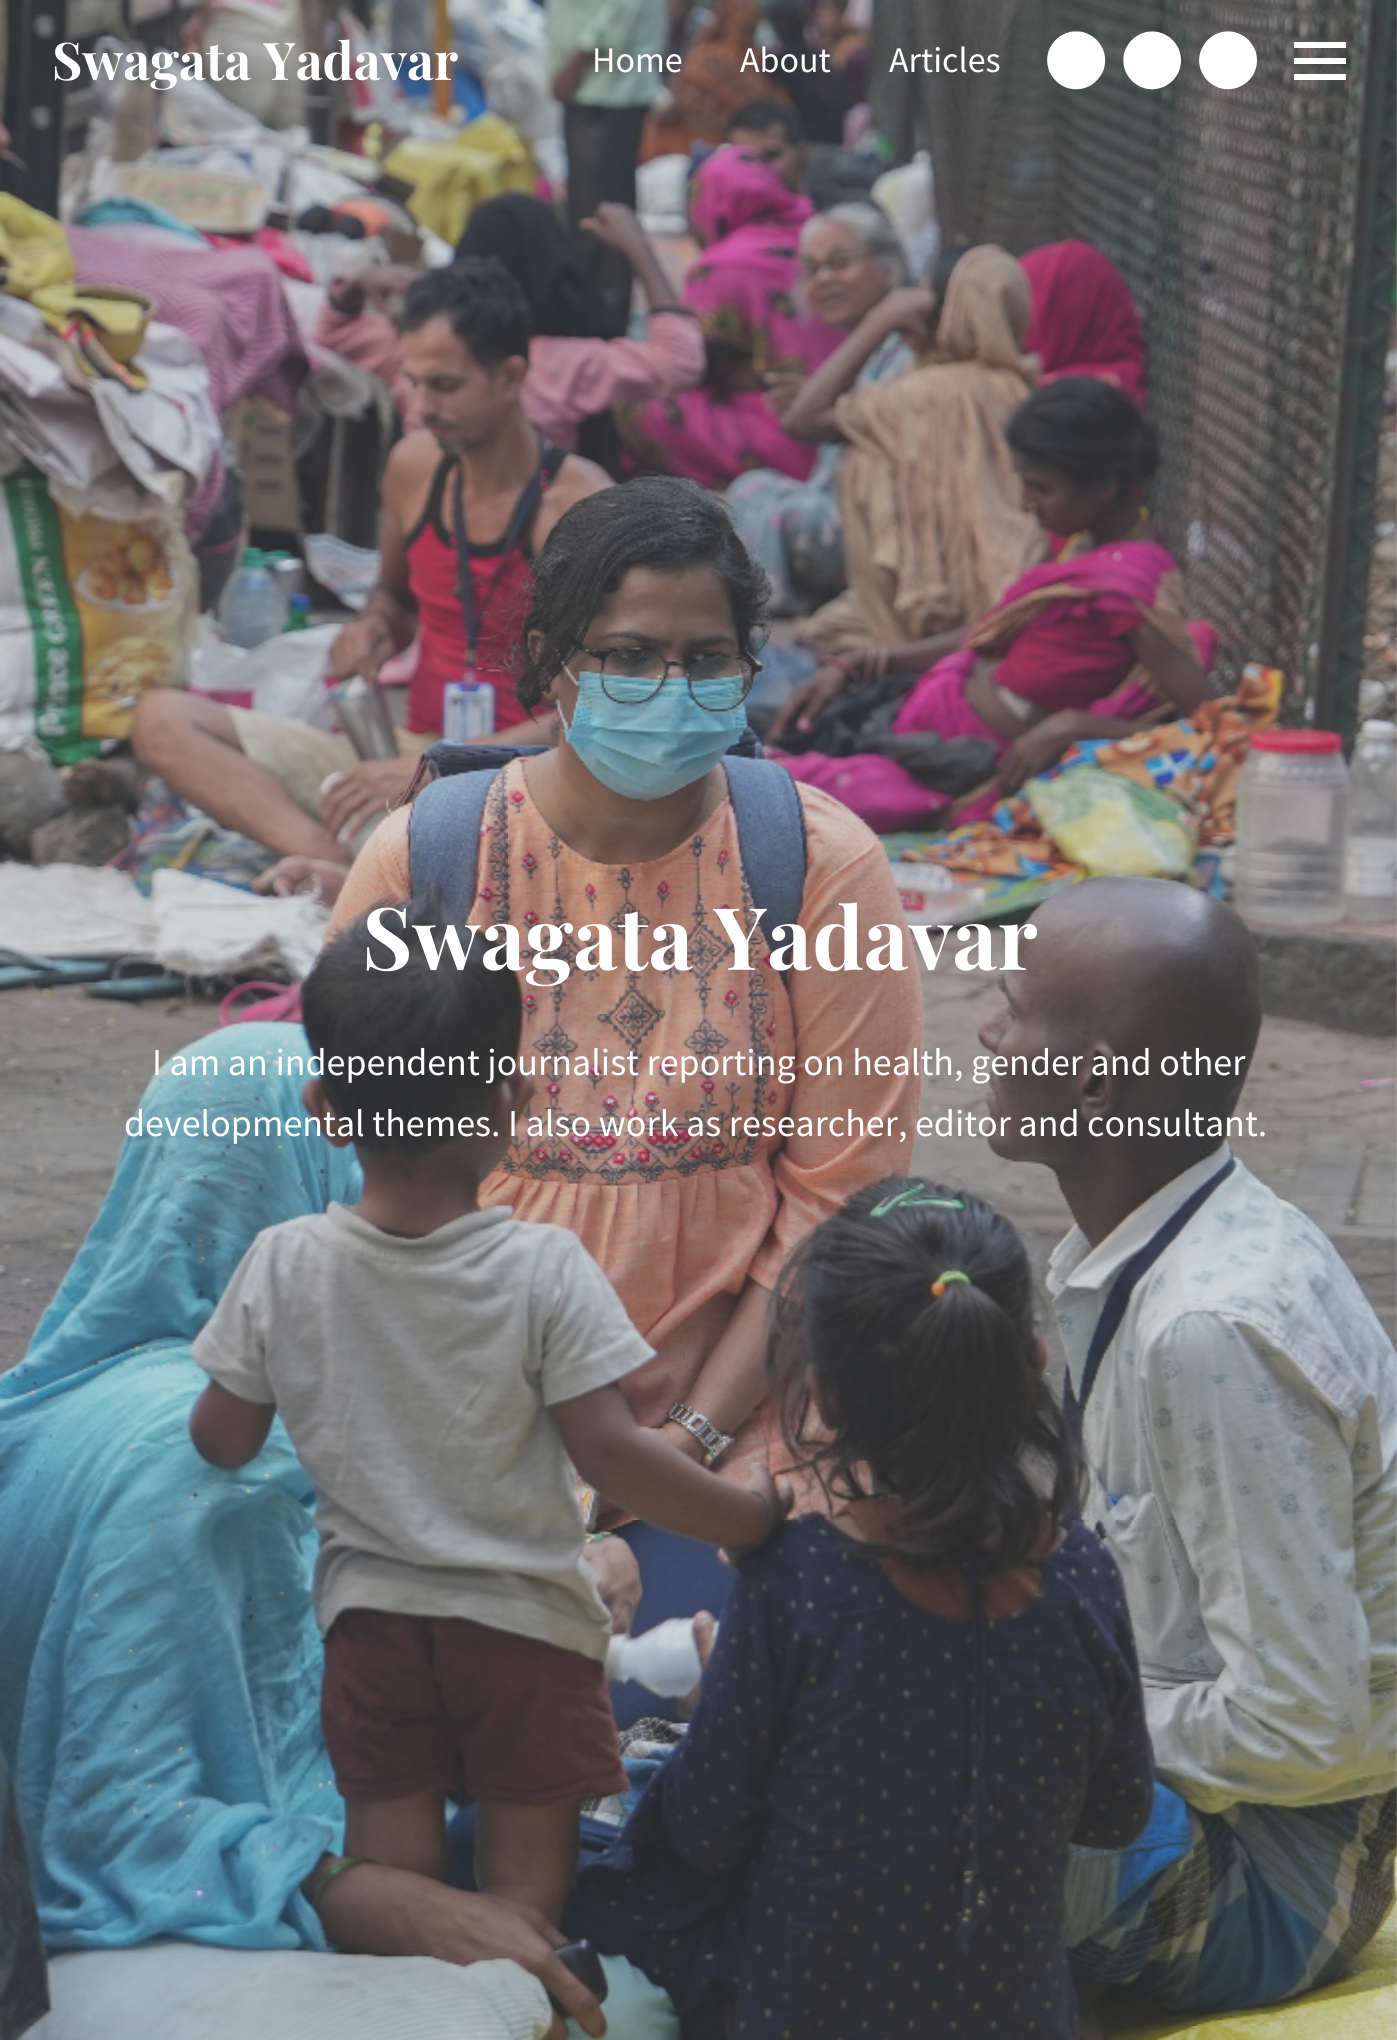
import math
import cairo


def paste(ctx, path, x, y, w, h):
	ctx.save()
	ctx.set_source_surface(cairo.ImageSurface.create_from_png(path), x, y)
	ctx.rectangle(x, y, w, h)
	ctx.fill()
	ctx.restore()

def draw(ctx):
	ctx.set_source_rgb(1, 1, 1)
	ctx.paint()
	paste(ctx, 'media/4.png', 0, 0, 1397, 2040)
	ctx.select_font_face('Playfair Display', cairo.FONT_SLANT_NORMAL, cairo.FONT_WEIGHT_BOLD)
	ctx.set_font_size(52)
	ctx.set_source_rgb(1, 1, 1)
	ctx.move_to(52, 80)
	ctx.show_text('Swagata Yadavar')
	ctx.select_font_face('Source Sans Pro')
	ctx.set_font_size(36)
	for x, y, s in [
		(592, 72, 'Home'),
		(740, 72, 'About'),
		(889, 72, 'Articles'),
	]:
		ctx.move_to(x, y)
		ctx.show_text(s)
	paste(ctx, 'media/1.png', 1047, 31, 59, 59)
	paste(ctx, 'media/2.png', 1123, 31, 58, 59)
	paste(ctx, 'media/3.png', 1199, 31, 58, 59)
	ctx.rectangle(1294, 58, 52, 6)
	ctx.rectangle(1294, 42, 52, 6)
	ctx.rectangle(1294, 74, 52, 6)
	ctx.fill()
	ctx.select_font_face('Playfair Display', cairo.FONT_SLANT_NORMAL, cairo.FONT_WEIGHT_BOLD)
	ctx.set_font_size(86.5)
	ctx.move_to(362, 970)
	ctx.show_text('Swagata Yadavar')
	ctx.select_font_face('Source Sans Pro')
	ctx.set_font_size(38)
	ctx.move_to(152, 1075)
	ctx.show_text('I am an independent journalist reporting on health, gender and other')
	ctx.move_to(124, 1136)
	ctx.show_text('developmental themes. I also work as researcher, editor and consultant.')


surface = cairo.ImageSurface(cairo.FORMAT_RGB24, 1397, 2040)
ctx = cairo.Context(surface)
options = cairo.FontOptions()
options.set_hint_metrics(cairo.HINT_METRICS_OFF)
options.set_hint_style(cairo.HINT_STYLE_NONE)
ctx.set_font_options(options)
ctx.set_miter_limit(4)
draw(ctx)
surface.write_to_png('image.png')
